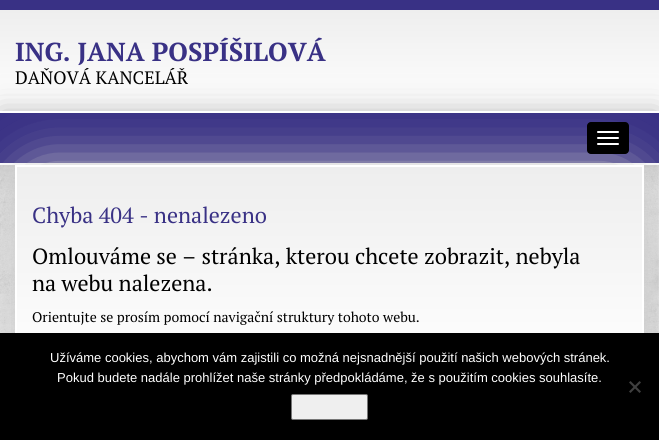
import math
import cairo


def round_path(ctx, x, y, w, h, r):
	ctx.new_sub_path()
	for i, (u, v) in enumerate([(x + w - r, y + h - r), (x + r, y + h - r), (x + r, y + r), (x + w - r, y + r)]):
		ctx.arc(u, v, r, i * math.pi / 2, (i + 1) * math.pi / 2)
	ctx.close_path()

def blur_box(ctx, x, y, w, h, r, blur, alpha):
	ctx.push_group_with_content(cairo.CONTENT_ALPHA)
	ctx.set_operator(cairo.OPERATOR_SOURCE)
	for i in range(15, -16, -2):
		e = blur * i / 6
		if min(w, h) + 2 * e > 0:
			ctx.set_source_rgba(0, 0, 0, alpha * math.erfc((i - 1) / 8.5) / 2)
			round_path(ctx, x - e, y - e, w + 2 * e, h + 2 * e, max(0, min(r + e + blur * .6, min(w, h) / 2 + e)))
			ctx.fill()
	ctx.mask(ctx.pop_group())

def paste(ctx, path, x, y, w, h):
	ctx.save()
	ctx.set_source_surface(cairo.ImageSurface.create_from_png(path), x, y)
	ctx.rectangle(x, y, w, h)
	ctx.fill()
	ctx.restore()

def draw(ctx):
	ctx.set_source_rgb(1, 1, 1)
	ctx.paint()
	paste(ctx, 'media/1.png', 0, 165, 659, 168)
	gradient = cairo.LinearGradient(330, 10, 330, 111)
	gradient.add_color_stop_rgba(0, 0.933, 0.933, 0.933, 1)
	gradient.add_color_stop_rgba(1, 1, 1, 1, 1)
	ctx.set_source(gradient)
	ctx.rectangle(0, 10, 659, 86)
	ctx.fill()
	ctx.set_source_rgb(0.224, 0.192, 0.522)
	ctx.rectangle(0, 0, 659, 10)
	ctx.fill()
	ctx.set_source_rgb(0.733, 0.733, 0.733)
	blur_box(ctx, 0, 111, 659, 54, 0, 15, 1)
	ctx.select_font_face('PT Serif', cairo.FONT_SLANT_NORMAL, cairo.FONT_WEIGHT_BOLD)
	ctx.set_font_size(26)
	ctx.set_source_rgb(0.224, 0.192, 0.522)
	ctx.move_to(15, 61)
	ctx.show_text('ING. JANA POSPÍŠILOVÁ')
	ctx.select_font_face('PT Serif')
	ctx.set_font_size(18)
	ctx.set_source_rgb(0, 0, 0)
	ctx.move_to(15, 84)
	ctx.show_text('DAŇOVÁ KANCELÁŘ')
	ctx.set_source_rgb(0.224, 0.192, 0.522)
	ctx.rectangle(0, 113, 659, 50)
	ctx.fill()
	ctx.set_source_rgb(1, 1, 1)
	ctx.rectangle(0, 111, 659, 2)
	ctx.rectangle(0, 163, 659, 2)
	ctx.fill()
	ctx.set_source_rgb(0.8, 0.8, 0.8)
	blur_box(ctx, 15, 165, 629, 214, 30, 25, 1)
	ctx.set_source_rgb(0, 0, 0)
	round_path(ctx, 587, 122, 42, 32, 4)
	ctx.fill()
	ctx.set_source_rgb(1, 1, 1)
	round_path(ctx, 597, 131, 22, 2, 1)
	ctx.fill()
	round_path(ctx, 597, 137, 22, 2, 1)
	ctx.fill()
	round_path(ctx, 597, 143, 22, 2, 1)
	ctx.fill()
	gradient = cairo.LinearGradient(330, 167, 330, 377)
	gradient.add_color_stop_rgba(0, 0.933, 0.933, 0.933, 1)
	gradient.add_color_stop_rgba(1, 1, 1, 1, 1)
	ctx.set_source(gradient)
	ctx.rectangle(17, 167, 625, 166)
	ctx.fill()
	ctx.rectangle(16, 166, 627, 212)
	ctx.set_source_rgb(1, 1, 1)
	ctx.stroke()
	ctx.set_font_size(22)
	ctx.set_source_rgb(0.224, 0.192, 0.522)
	ctx.move_to(32, 223)
	ctx.show_text('Chyba 404 - nenalezeno')
	ctx.set_source_rgb(0, 0, 0)
	ctx.move_to(32, 264)
	ctx.show_text('Omlouváme se – stránka, kterou chcete zobrazit, nebyla')
	ctx.move_to(32, 291)
	ctx.show_text('na webu nalezena.')
	ctx.set_font_size(14)
	ctx.move_to(32, 322)
	ctx.show_text('Orientujte se prosím pomocí navigační struktury tohoto webu.')
	ctx.rectangle(0, 333, 659, 107)
	ctx.fill()
	ctx.select_font_face('Liberation Sans')
	ctx.set_font_size(13)
	ctx.set_source_rgb(1, 1, 1)
	ctx.move_to(50, 362)
	ctx.show_text('Užíváme cookies, abychom vám zajistili co možná nejsnadnější použití našich webových stránek.')
	ctx.move_to(57, 382)
	ctx.show_text('Pokud budete nadále prohlížet naše stránky předpokládáme, že s použitím cookies souhlasíte.')
	ctx.set_source_rgb(0.251, 0.251, 0.251)
	ctx.new_path()
	ctx.move_to(639.5, 381)
	ctx.line_to(641, 382.5)
	ctx.line_to(630.5, 393)
	ctx.line_to(629, 391.5)
	ctx.close_path()
	ctx.fill()
	ctx.new_path()
	ctx.move_to(629, 382.5)
	ctx.line_to(630.5, 381)
	ctx.line_to(641, 391.5)
	ctx.line_to(639.5, 393)
	ctx.close_path()
	ctx.fill()
	ctx.set_source_rgb(0.937, 0.937, 0.937)
	round_path(ctx, 291.5, 394.5, 76, 25, 1.5)
	ctx.fill_preserve()
	ctx.set_source_rgb(0.463, 0.463, 0.463)
	ctx.set_line_width(1)
	ctx.stroke()


surface = cairo.ImageSurface(cairo.FORMAT_RGB24, 659, 440)
ctx = cairo.Context(surface)
options = cairo.FontOptions()
options.set_hint_metrics(cairo.HINT_METRICS_OFF)
options.set_hint_style(cairo.HINT_STYLE_NONE)
ctx.set_font_options(options)
ctx.set_miter_limit(4)
draw(ctx)
surface.write_to_png('image.png')
